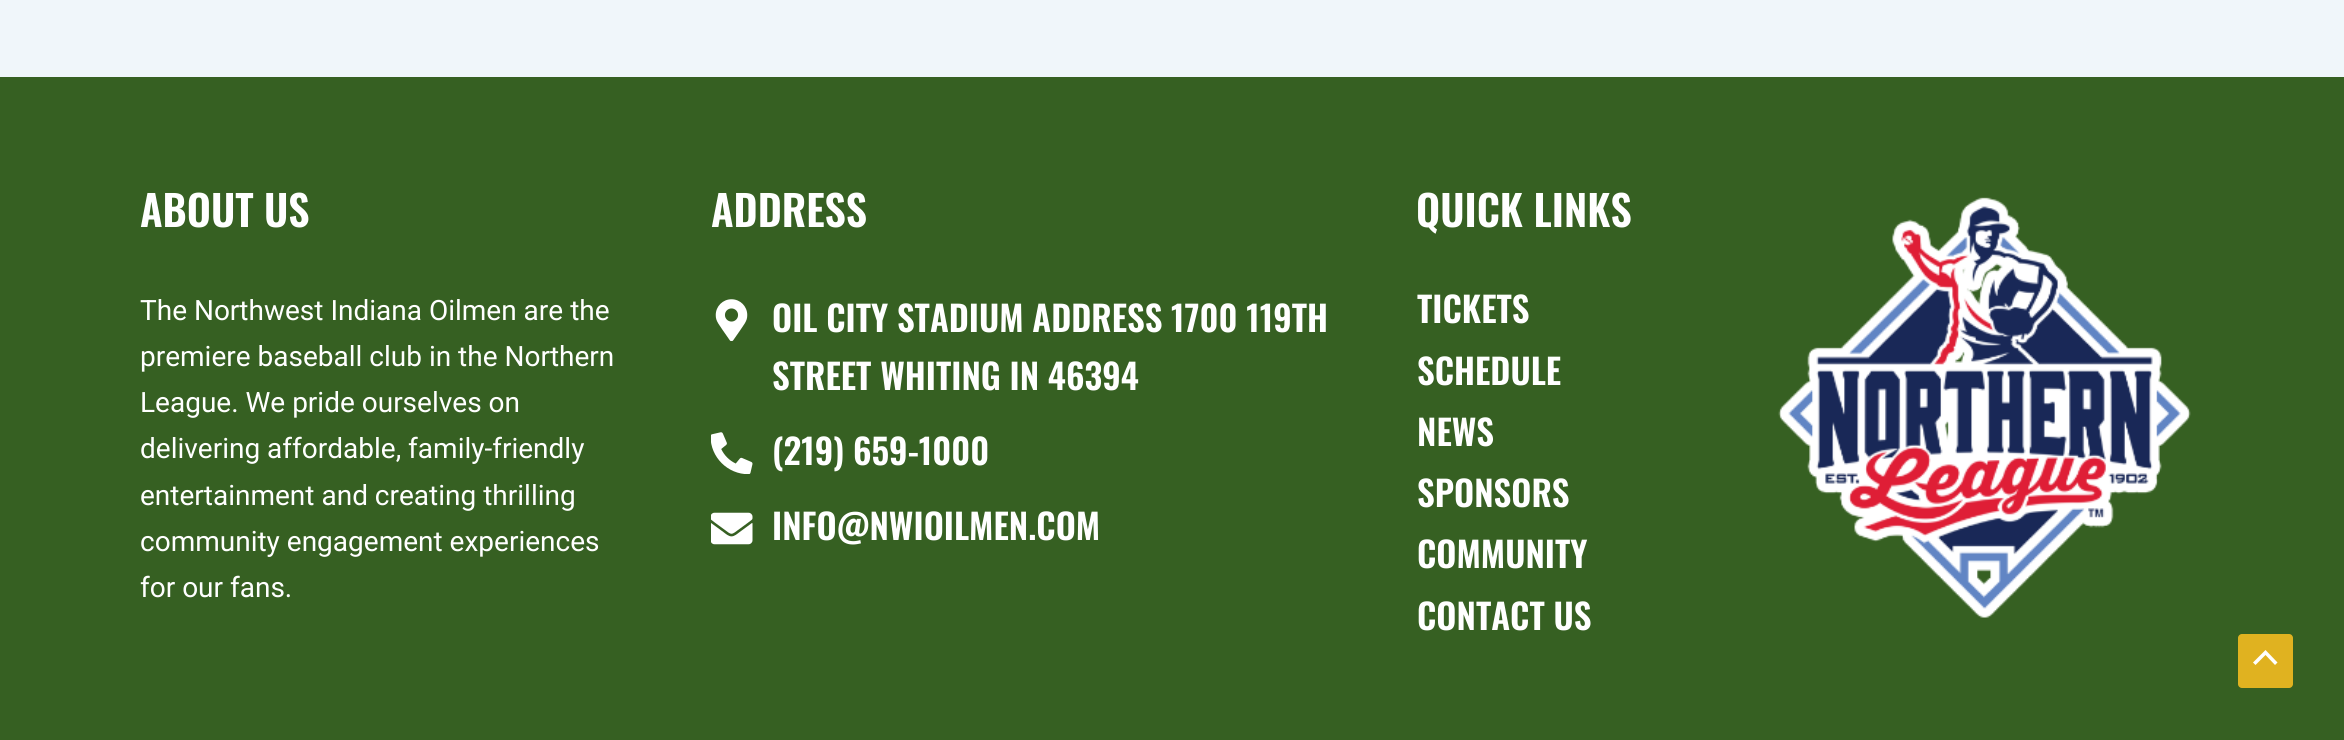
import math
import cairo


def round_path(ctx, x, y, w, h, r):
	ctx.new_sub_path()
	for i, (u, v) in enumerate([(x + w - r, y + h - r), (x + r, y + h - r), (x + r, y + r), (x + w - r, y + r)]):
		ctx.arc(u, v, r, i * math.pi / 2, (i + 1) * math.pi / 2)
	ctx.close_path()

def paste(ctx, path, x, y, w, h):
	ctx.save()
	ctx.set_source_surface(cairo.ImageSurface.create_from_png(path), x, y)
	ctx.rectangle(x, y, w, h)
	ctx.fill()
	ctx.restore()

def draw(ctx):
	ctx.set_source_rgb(0.941, 0.961, 0.98)
	ctx.paint()
	ctx.set_source_rgb(0.212, 0.376, 0.133)
	ctx.rectangle(0, 77, 2344, 663)
	ctx.fill()
	ctx.select_font_face('Oswald SemiBold')
	ctx.set_font_size(42)
	ctx.set_source_rgb(1, 1, 1)
	ctx.move_to(140, 227)
	ctx.show_text('ABOUT US')
	ctx.select_font_face('Roboto')
	ctx.set_font_size(28)
	for x, y, s in [
		(140, 320, 'The Northwest Indiana Oilmen are the'),
		(140, 366, 'premiere baseball club in the Northern'),
		(140, 412, 'League. We pride ourselves on'),
		(140, 458, 'delivering affordable, family-friendly'),
		(140, 505, 'entertainment and creating thrilling'),
		(140, 551, 'community engagement experiences'),
		(140, 597, 'for our fans.'),
	]:
		ctx.move_to(x, y)
		ctx.show_text(s)
	ctx.select_font_face('Oswald SemiBold')
	ctx.set_font_size(42)
	ctx.move_to(711, 227)
	ctx.show_text('ADDRESS')
	paste(ctx, 'media/1.png', 715, 299, 33, 42)
	ctx.set_font_size(35)
	ctx.move_to(772, 332)
	ctx.show_text('OIL CITY STADIUM ADDRESS 1700 119TH')
	ctx.move_to(772, 390)
	ctx.show_text('STREET WHITING IN 46394')
	paste(ctx, 'media/2.png', 711, 432, 42, 42)
	ctx.move_to(772, 465)
	ctx.show_text('(219) 659-1000')
	paste(ctx, 'media/3.png', 711, 512, 42, 33)
	ctx.move_to(772, 540)
	ctx.show_text('INFO@NWIOILMEN.COM')
	ctx.set_font_size(42)
	ctx.move_to(1416, 227)
	ctx.show_text('QUICK LINKS')
	ctx.set_font_size(35)
	for x, y, s in [
		(1417, 323, 'TICKETS'),
		(1417, 385, 'SCHEDULE'),
		(1417, 446, 'NEWS'),
		(1417, 507, 'SPONSORS'),
		(1417, 568, 'COMMUNITY'),
		(1417, 630, 'CONTACT US'),
	]:
		ctx.move_to(x, y)
		ctx.show_text(s)
	paste(ctx, 'media/4.png', 1778, 197, 413, 421)
	ctx.set_source_rgb(0.878, 0.698, 0.125)
	round_path(ctx, 2238, 634, 55, 54, 4)
	ctx.fill()
	ctx.set_source_rgb(1, 1, 1)
	ctx.new_path()
	ctx.move_to(2277.5, 662.5)
	ctx.line_to(2265.5, 650)
	ctx.line_to(2253, 662.5)
	ctx.line_to(2255.5, 665)
	ctx.line_to(2265.5, 655)
	ctx.line_to(2275, 665)
	ctx.close_path()
	ctx.fill()


surface = cairo.ImageSurface(cairo.FORMAT_RGB24, 2344, 740)
ctx = cairo.Context(surface)
options = cairo.FontOptions()
options.set_hint_metrics(cairo.HINT_METRICS_OFF)
options.set_hint_style(cairo.HINT_STYLE_NONE)
ctx.set_font_options(options)
ctx.set_miter_limit(4)
draw(ctx)
surface.write_to_png('image.png')
